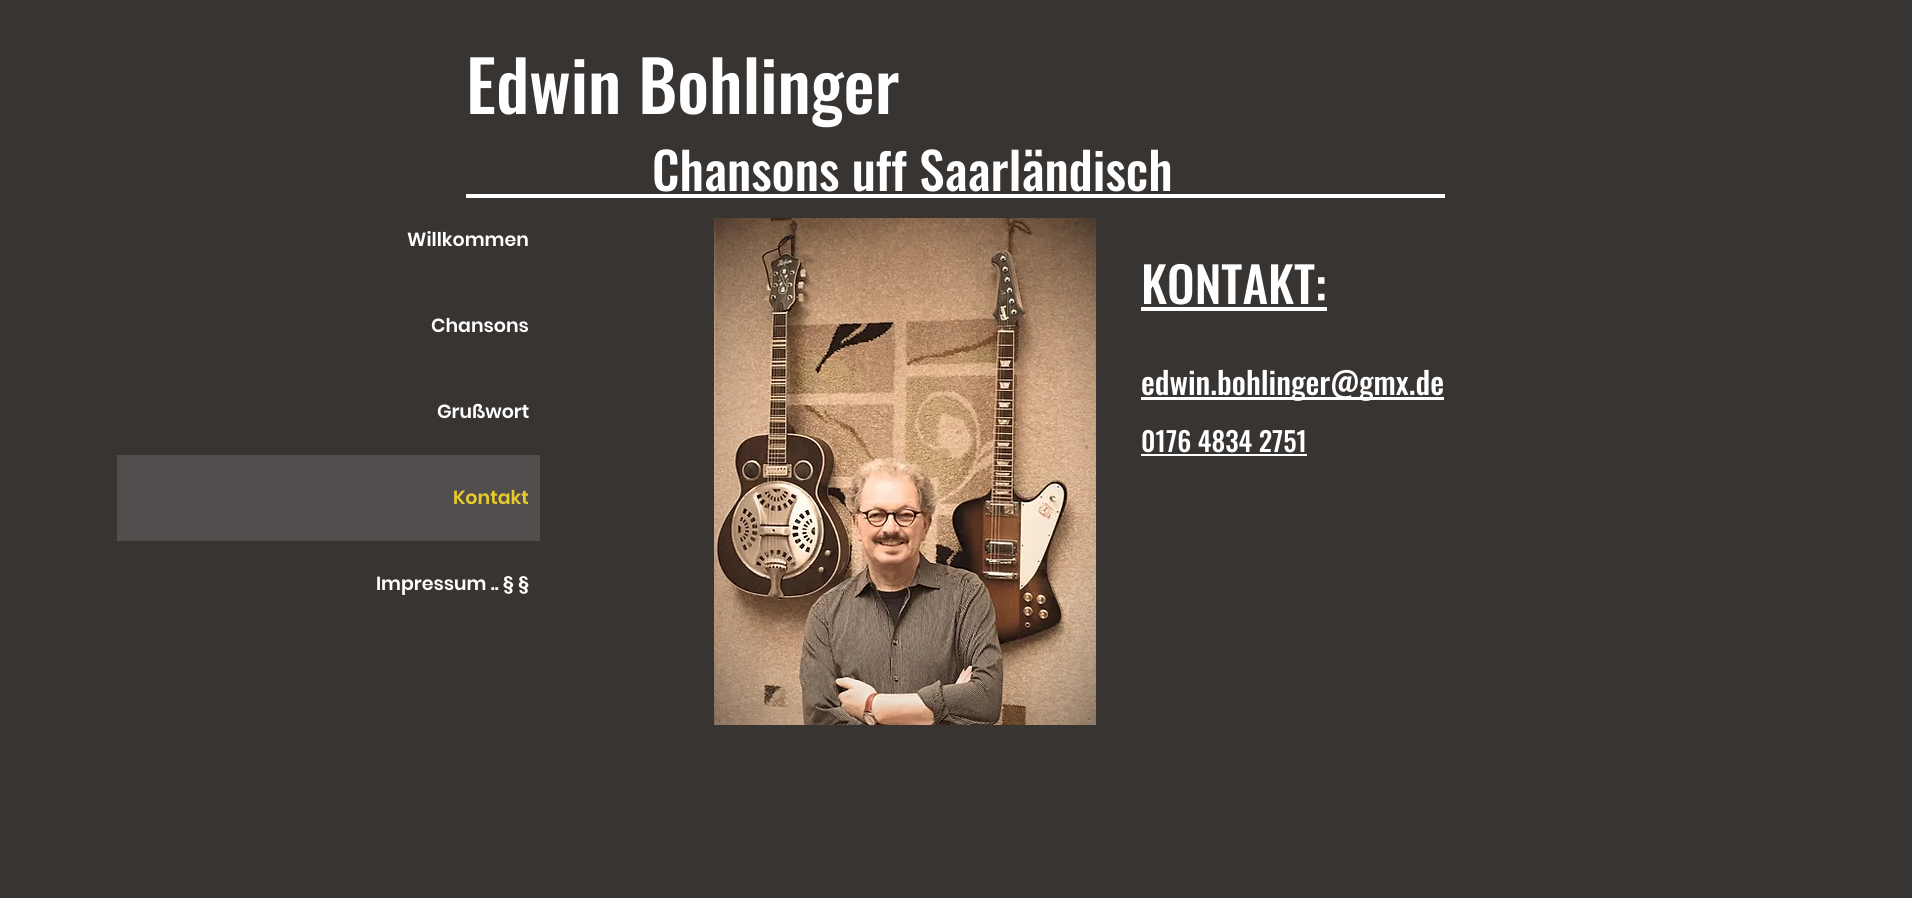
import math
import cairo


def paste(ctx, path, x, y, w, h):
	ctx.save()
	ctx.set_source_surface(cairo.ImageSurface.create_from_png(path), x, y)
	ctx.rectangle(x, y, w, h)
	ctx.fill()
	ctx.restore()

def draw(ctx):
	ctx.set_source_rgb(0.22, 0.204, 0.196)
	ctx.paint()
	ctx.select_font_face('Poppins SemiBold')
	ctx.set_font_size(19)
	ctx.set_source_rgb(1, 1, 1)
	for x, y, s in [
		(407, 246, 'Willkommen'),
		(431, 332, 'Chansons'),
		(437, 418, 'Grußwort'),
	]:
		ctx.move_to(x, y)
		ctx.show_text(s)
	ctx.set_source_rgb(0.322, 0.306, 0.302)
	ctx.rectangle(117, 455, 423, 86)
	ctx.fill()
	ctx.set_source_rgb(0.914, 0.8, 0.169)
	ctx.move_to(453, 504)
	ctx.show_text('Kontakt')
	ctx.set_source_rgb(1, 1, 1)
	ctx.move_to(376, 590)
	ctx.show_text('Impressum .. § §')
	ctx.select_font_face('Oswald Medium')
	ctx.set_font_size(70)
	ctx.move_to(466, 114)
	ctx.show_text('Edwin Bohlinger')
	ctx.set_font_size(51)
	ctx.move_to(652, 191)
	ctx.show_text('Chansons uff Saarländisch')
	ctx.rectangle(466, 194, 979, 4)
	ctx.fill()
	paste(ctx, 'media/1.png', 714, 218, 382, 507)
	ctx.set_font_size(49)
	ctx.move_to(1141, 304)
	ctx.show_text('KONTAKT:')
	ctx.rectangle(1141, 307, 186, 4)
	ctx.fill()
	ctx.rectangle(1141, 397, 303, 3)
	ctx.fill()
	ctx.set_font_size(31)
	ctx.move_to(1141, 395)
	ctx.show_text('edwin.bohlinger@gmx.de')
	ctx.set_font_size(27)
	ctx.move_to(1141, 452)
	ctx.show_text('0176 4834 2751')
	ctx.rectangle(1141, 454, 166, 2)
	ctx.fill()


surface = cairo.ImageSurface(cairo.FORMAT_RGB24, 1912, 898)
ctx = cairo.Context(surface)
options = cairo.FontOptions()
options.set_hint_metrics(cairo.HINT_METRICS_OFF)
options.set_hint_style(cairo.HINT_STYLE_NONE)
ctx.set_font_options(options)
ctx.set_miter_limit(4)
draw(ctx)
surface.write_to_png('image.png')
